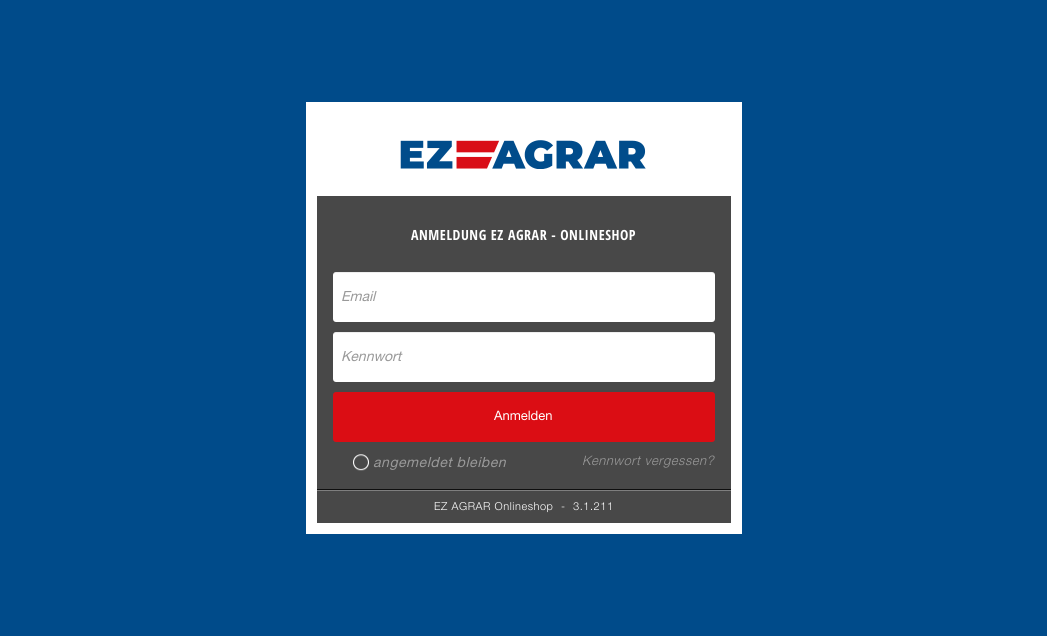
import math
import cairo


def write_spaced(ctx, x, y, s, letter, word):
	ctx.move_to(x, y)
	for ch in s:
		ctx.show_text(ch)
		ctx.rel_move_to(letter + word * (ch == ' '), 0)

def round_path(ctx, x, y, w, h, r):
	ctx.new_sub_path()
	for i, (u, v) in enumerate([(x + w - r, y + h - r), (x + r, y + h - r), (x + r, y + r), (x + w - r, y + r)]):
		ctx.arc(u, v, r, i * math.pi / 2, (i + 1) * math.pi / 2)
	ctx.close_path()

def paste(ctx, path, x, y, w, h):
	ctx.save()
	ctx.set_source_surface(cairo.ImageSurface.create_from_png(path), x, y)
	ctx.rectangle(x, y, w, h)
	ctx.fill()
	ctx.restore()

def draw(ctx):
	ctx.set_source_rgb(0, 0.294, 0.541)
	ctx.paint()
	ctx.set_source_rgb(1, 1, 1)
	ctx.rectangle(306, 102, 436, 432)
	ctx.fill()
	paste(ctx, 'media/1.png', 400, 140, 246, 29)
	ctx.set_source_rgb(0.282, 0.282, 0.282)
	ctx.rectangle(317, 196, 414, 293)
	ctx.fill()
	ctx.set_source_rgb(0.055, 0.055, 0.055)
	ctx.rectangle(317, 489, 414, 1)
	ctx.fill()
	ctx.select_font_face('Open Sans Condensed', cairo.FONT_SLANT_NORMAL, cairo.FONT_WEIGHT_BOLD)
	ctx.set_font_size(14)
	ctx.set_source_rgb(1, 1, 1)
	write_spaced(ctx, 411, 240, 'ANMELDUNG EZ AGRAR - ONLINESHOP', 0.55, 0)
	round_path(ctx, 333, 272, 382, 50, 3)
	ctx.fill()
	ctx.set_source_rgba(0, 0, 0, 0.07)
	ctx.new_path()
	ctx.move_to(336, 273)
	ctx.line_to(712, 273)
	ctx.curve_to(714, 273, 715, 275, 715, 276)
	ctx.curve_to(715, 274, 714, 272, 712, 272)
	ctx.line_to(336, 272)
	ctx.line_to(334, 273)
	ctx.line_to(333, 276)
	ctx.curve_to(333, 275, 334, 273, 336, 273)
	ctx.close_path()
	ctx.fill()
	ctx.select_font_face('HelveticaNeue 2', cairo.FONT_SLANT_ITALIC)
	ctx.set_source_rgb(0.6, 0.6, 0.6)
	ctx.move_to(341, 301)
	ctx.show_text('Email')
	ctx.set_source_rgb(1, 1, 1)
	round_path(ctx, 333, 332, 382, 50, 3)
	ctx.fill()
	ctx.set_source_rgba(0, 0, 0, 0.07)
	ctx.new_path()
	ctx.move_to(336, 333)
	ctx.line_to(712, 333)
	ctx.curve_to(714, 333, 715, 335, 715, 336)
	ctx.curve_to(715, 334, 714, 332, 712, 332)
	ctx.line_to(336, 332)
	ctx.line_to(334, 333)
	ctx.line_to(333, 336)
	ctx.curve_to(333, 335, 334, 333, 336, 333)
	ctx.close_path()
	ctx.fill()
	ctx.set_source_rgb(0.6, 0.6, 0.6)
	ctx.move_to(341, 361)
	ctx.show_text('Kennwort')
	ctx.set_source_rgb(0.859, 0.051, 0.082)
	round_path(ctx, 333, 392, 382, 50, 3)
	ctx.fill()
	ctx.select_font_face('HelveticaNeue 2')
	ctx.set_font_size(13)
	ctx.set_source_rgb(1, 1, 1)
	ctx.move_to(494, 420)
	ctx.show_text('Anmelden')
	paste(ctx, 'media/2.png', 353, 454, 16, 17)
	ctx.select_font_face('HelveticaNeue 2', cairo.FONT_SLANT_ITALIC)
	ctx.set_font_size(14)
	ctx.set_source_rgb(0.6, 0.6, 0.6)
	write_spaced(ctx, 373, 467, 'angemeldet bleiben', 0.55, 0)
	ctx.select_font_face('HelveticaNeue', cairo.FONT_SLANT_ITALIC)
	ctx.set_font_size(13)
	write_spaced(ctx, 582, 465, 'Kennwort vergessen?', 0.55, 0)
	ctx.set_source_rgb(0.282, 0.282, 0.282)
	ctx.rectangle(317, 491, 414, 32)
	ctx.fill()
	ctx.set_source_rgb(0.498, 0.498, 0.498)
	ctx.rectangle(317, 490, 414, 1)
	ctx.fill()
	ctx.select_font_face('HelveticaNeue')
	ctx.set_font_size(11)
	ctx.set_source_rgb(1, 1, 1)
	for x, y, s in [
		(434, 510, 'EZ AGRAR Onlineshop'),
		(561, 510, '-'),
		(573, 510, '3.1.211'),
	]:
		write_spaced(ctx, x, y, s, 0.55, 0)


surface = cairo.ImageSurface(cairo.FORMAT_RGB24, 1047, 636)
ctx = cairo.Context(surface)
options = cairo.FontOptions()
options.set_hint_metrics(cairo.HINT_METRICS_OFF)
options.set_hint_style(cairo.HINT_STYLE_NONE)
ctx.set_font_options(options)
ctx.set_miter_limit(4)
draw(ctx)
surface.write_to_png('image.png')
